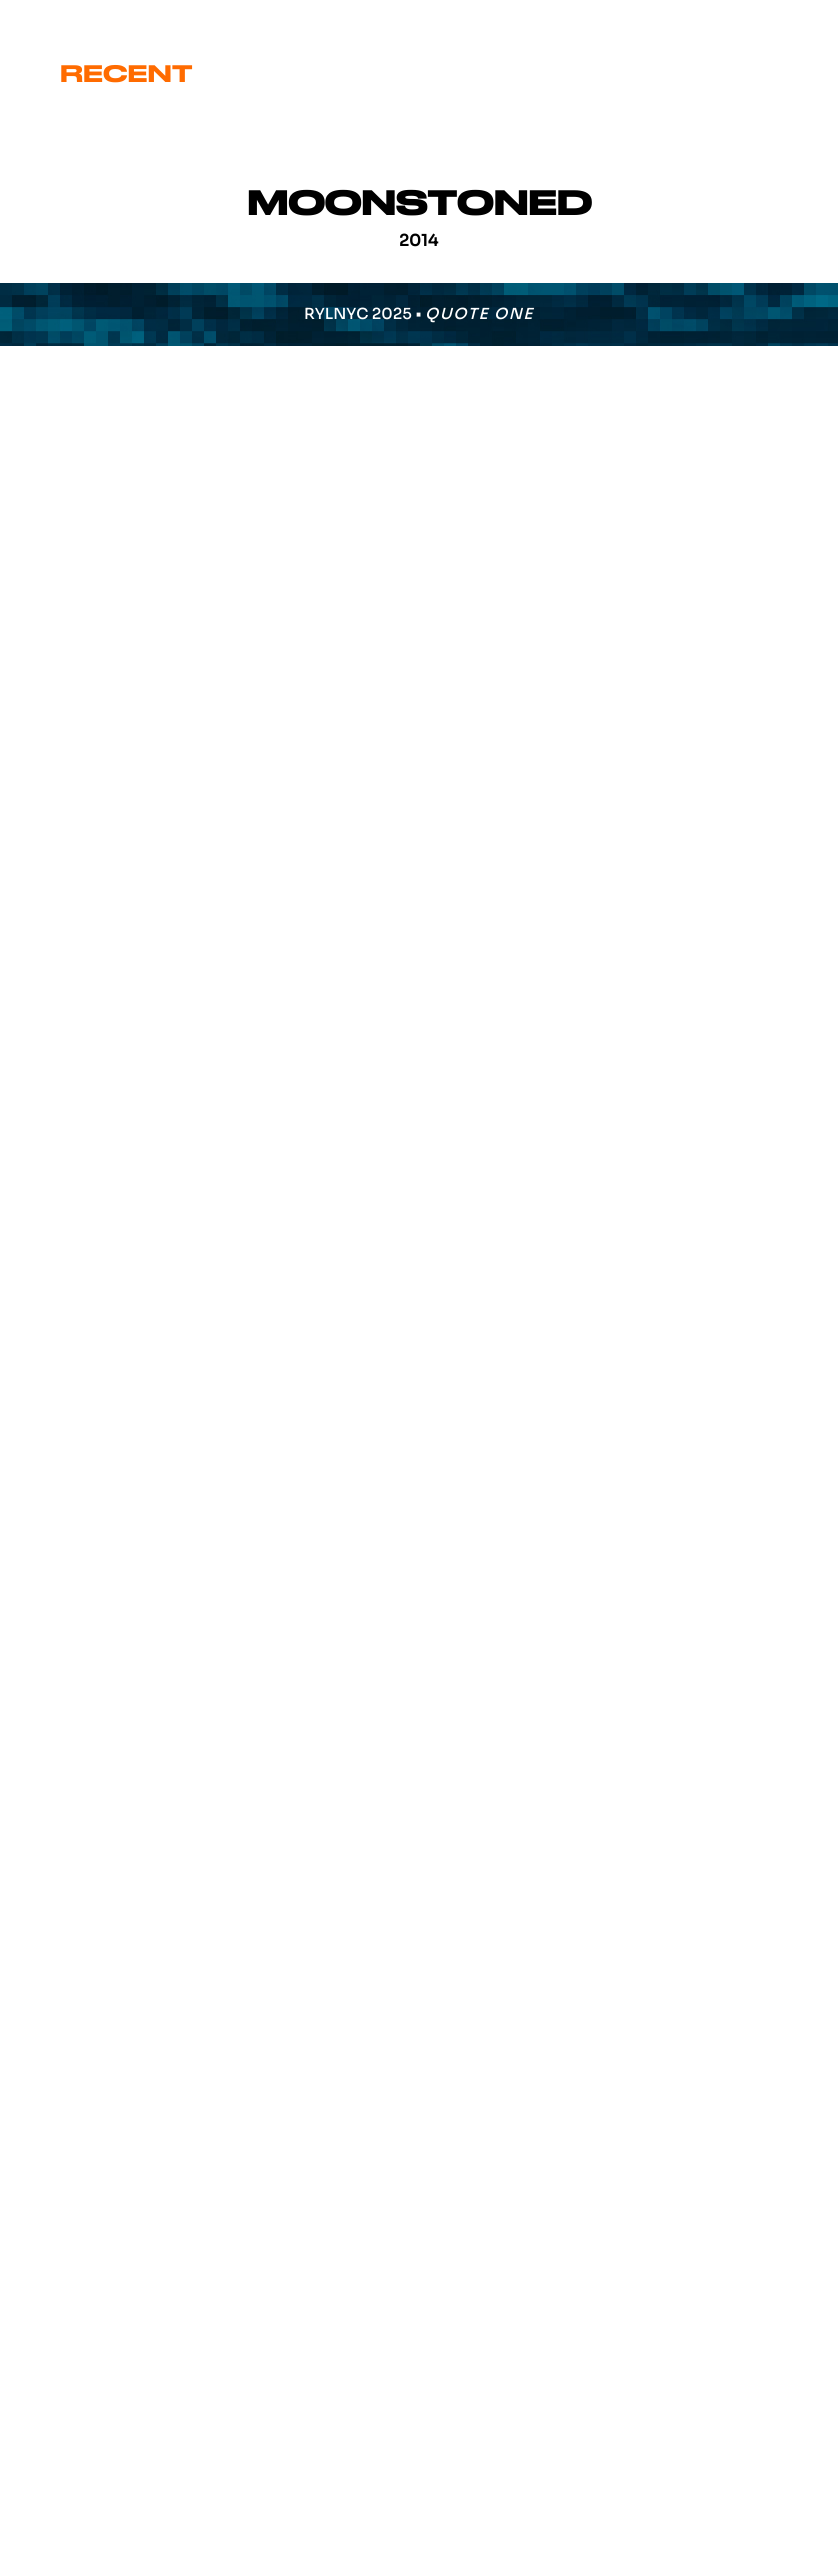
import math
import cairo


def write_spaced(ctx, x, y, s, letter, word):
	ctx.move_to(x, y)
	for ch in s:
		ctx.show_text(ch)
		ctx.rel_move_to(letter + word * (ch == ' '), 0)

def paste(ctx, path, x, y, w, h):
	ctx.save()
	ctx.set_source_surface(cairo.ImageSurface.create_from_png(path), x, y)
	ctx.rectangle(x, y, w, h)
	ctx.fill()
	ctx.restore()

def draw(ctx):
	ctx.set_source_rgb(1, 1, 1)
	ctx.paint()
	ctx.select_font_face('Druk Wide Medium')
	ctx.set_font_size(22.5)
	ctx.set_source_rgb(1, 0.42, 0)
	ctx.move_to(60, 82)
	ctx.show_text('RECENT')
	ctx.select_font_face('Druk Wide', cairo.FONT_SLANT_NORMAL, cairo.FONT_WEIGHT_BOLD)
	ctx.set_font_size(32)
	ctx.set_source_rgb(0, 0, 0)
	ctx.move_to(247, 215)
	ctx.show_text('MOONSTONED')
	ctx.select_font_face('Sora', cairo.FONT_SLANT_NORMAL, cairo.FONT_WEIGHT_BOLD)
	ctx.set_font_size(16)
	ctx.move_to(399, 246)
	ctx.show_text('2014')
	paste(ctx, 'media/1.png', 0, 283, 838, 63)
	ctx.select_font_face('Sora Medium')
	ctx.set_font_size(15.25)
	ctx.set_source_rgb(1, 1, 1)
	ctx.move_to(304, 319)
	ctx.show_text('RYLNYC 2025 •')
	ctx.select_font_face('Sora Medium', cairo.FONT_SLANT_ITALIC)
	write_spaced(ctx, 425, 319, 'QUOTE ONE', 1.5, 0)


surface = cairo.ImageSurface(cairo.FORMAT_RGB24, 838, 2555)
ctx = cairo.Context(surface)
options = cairo.FontOptions()
options.set_hint_metrics(cairo.HINT_METRICS_OFF)
options.set_hint_style(cairo.HINT_STYLE_NONE)
ctx.set_font_options(options)
ctx.set_miter_limit(4)
draw(ctx)
surface.write_to_png('image.png')
